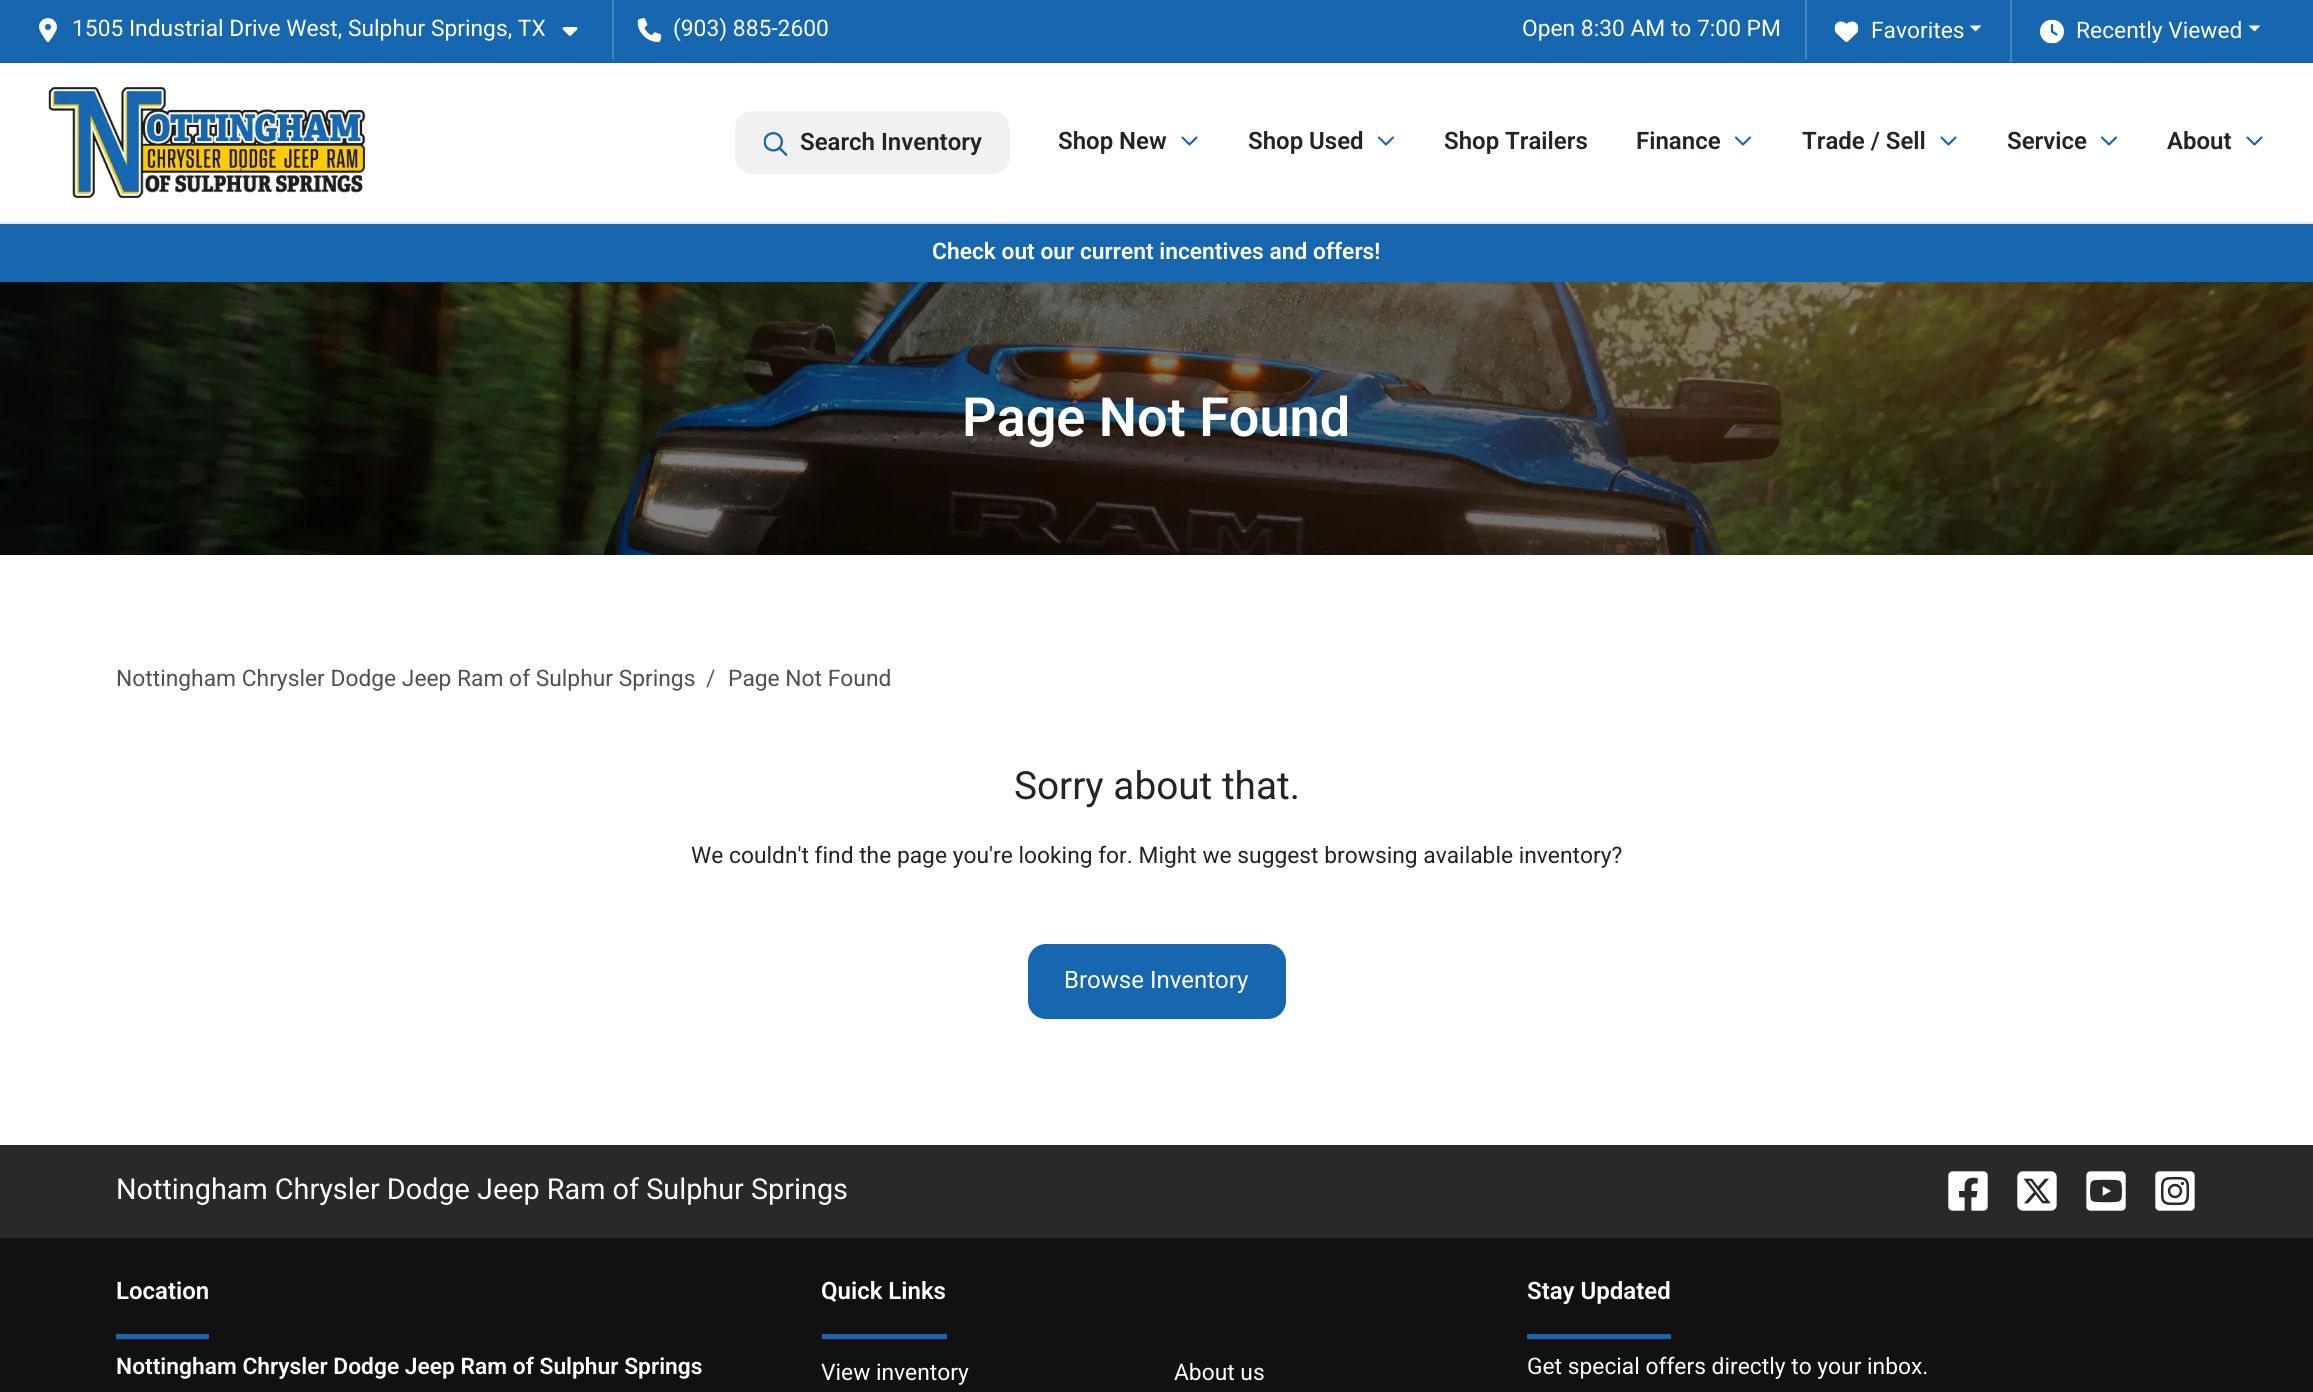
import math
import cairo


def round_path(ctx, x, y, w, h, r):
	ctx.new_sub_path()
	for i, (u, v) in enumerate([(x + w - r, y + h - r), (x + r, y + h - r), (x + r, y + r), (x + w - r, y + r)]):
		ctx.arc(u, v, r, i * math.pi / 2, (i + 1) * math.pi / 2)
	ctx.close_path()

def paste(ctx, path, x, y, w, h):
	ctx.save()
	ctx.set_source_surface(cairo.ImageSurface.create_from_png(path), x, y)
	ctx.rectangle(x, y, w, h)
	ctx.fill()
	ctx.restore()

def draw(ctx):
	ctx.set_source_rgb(0.086, 0.404, 0.69)
	ctx.paint()
	ctx.set_source_rgb(0.086, 0.376, 0.635)
	ctx.rectangle(0, 62, 2313, 1)
	ctx.fill()
	ctx.set_source_rgb(0.271, 0.522, 0.753)
	ctx.rectangle(612, 0, 2, 59)
	ctx.fill()
	paste(ctx, 'media/1.png', 39, 18, 18, 24)
	ctx.select_font_face('Roboto')
	ctx.set_font_size(22.8)
	ctx.set_source_rgb(1, 1, 1)
	ctx.move_to(72, 36)
	ctx.show_text('1505 Industrial Drive West, Sulphur Springs, TX')
	paste(ctx, 'media/2.png', 562, 27, 16, 9)
	paste(ctx, 'media/3.png', 637, 18, 25, 24)
	ctx.move_to(673, 36)
	ctx.show_text('(903) 885-2600')
	ctx.set_source_rgb(0.271, 0.522, 0.753)
	ctx.rectangle(1805, 0, 2, 59)
	ctx.fill()
	ctx.set_source_rgb(1, 1, 1)
	ctx.move_to(1522, 36)
	ctx.show_text('Open 8:30 AM to 7:00 PM')
	ctx.set_source_rgb(0.271, 0.522, 0.753)
	ctx.rectangle(2010, 0, 2, 62)
	ctx.fill()
	paste(ctx, 'media/4.png', 1834, 21, 25, 21)
	ctx.set_source_rgb(1, 1, 1)
	ctx.move_to(1871, 38)
	ctx.show_text('Favorites')
	ctx.new_path()
	ctx.move_to(1969.5, 25.5)
	ctx.line_to(1981.5, 25.5)
	ctx.line_to(1975.5, 31.5)
	ctx.close_path()
	ctx.fill()
	paste(ctx, 'media/5.png', 2040, 19, 24, 25)
	ctx.move_to(2076, 38)
	ctx.show_text('Recently Viewed')
	ctx.new_path()
	ctx.move_to(2248.5, 25.5)
	ctx.line_to(2260.5, 25.5)
	ctx.line_to(2254.5, 31.5)
	ctx.close_path()
	ctx.fill()
	ctx.rectangle(0, 63, 2313, 159)
	ctx.fill()
	ctx.set_source_rgb(0.91, 0.91, 0.914)
	ctx.rectangle(0, 222, 2313, 2)
	ctx.fill()
	paste(ctx, 'media/6.png', 48, 87, 317, 111)
	ctx.set_source_rgb(0.945, 0.945, 0.949)
	round_path(ctx, 735, 111, 275, 63, 18)
	ctx.fill()
	paste(ctx, 'media/7.png', 763, 132, 25, 24)
	ctx.select_font_face('Roboto SemiBold')
	ctx.set_font_size(24)
	ctx.set_source_rgb(0.129, 0.145, 0.161)
	ctx.move_to(800, 150)
	ctx.show_text('Search Inventory')
	ctx.move_to(1058, 149)
	ctx.show_text('Shop New')
	paste(ctx, 'media/8.png', 1181, 136, 17, 10)
	ctx.move_to(1248, 149)
	ctx.show_text('Shop Used')
	paste(ctx, 'media/9.png', 1378, 136, 16, 10)
	ctx.move_to(1444, 149)
	ctx.show_text('Shop Trailers')
	ctx.move_to(1636, 149)
	ctx.show_text('Finance')
	paste(ctx, 'media/9.png', 1735, 136, 16, 10)
	ctx.move_to(1802, 149)
	ctx.show_text('Trade / Sell')
	paste(ctx, 'media/8.png', 1940, 136, 17, 10)
	ctx.move_to(2007, 149)
	ctx.show_text('Service')
	paste(ctx, 'media/9.png', 2101, 136, 16, 10)
	ctx.move_to(2167, 149)
	ctx.show_text('About')
	paste(ctx, 'media/8.png', 2246, 136, 17, 10)
	ctx.set_font_size(22.8)
	ctx.set_source_rgb(1, 1, 1)
	ctx.move_to(932, 259)
	ctx.show_text('Check out our current incentives and offers!')
	paste(ctx, 'media/10.png', 0, 282, 2313, 273)
	ctx.set_font_size(54)
	ctx.move_to(962, 436)
	ctx.show_text('Page Not Found')
	ctx.rectangle(0, 555, 2313, 590)
	ctx.fill()
	ctx.select_font_face('Roboto')
	ctx.set_font_size(22.8)
	ctx.set_source_rgb(0.306, 0.318, 0.333)
	ctx.move_to(116, 686)
	ctx.show_text('Nottingham Chrysler Dodge Jeep Ram of Sulphur Springs')
	ctx.set_source_rgb(0.349, 0.361, 0.373)
	ctx.move_to(706, 686)
	ctx.show_text('/')
	ctx.set_source_rgb(0.306, 0.318, 0.333)
	ctx.move_to(728, 686)
	ctx.show_text('Page Not Found')
	ctx.set_font_size(38.75)
	ctx.set_source_rgb(0.129, 0.145, 0.161)
	ctx.move_to(1014, 799)
	ctx.show_text('Sorry about that.')
	ctx.set_font_size(22.8)
	ctx.move_to(691, 863)
	ctx.show_text('We couldn\'t find the page you\'re looking for. Might we suggest browsing available inventory?')
	ctx.set_source_rgb(0.086, 0.404, 0.69)
	round_path(ctx, 1029, 945, 256, 73, 17)
	ctx.fill_preserve()
	ctx.stroke()
	ctx.set_font_size(24)
	ctx.set_source_rgb(1, 1, 1)
	ctx.move_to(1064, 988)
	ctx.show_text('Browse Inventory')
	ctx.set_source_rgb(0.067, 0.067, 0.067)
	ctx.rectangle(0, 1238, 2313, 154)
	ctx.fill()
	ctx.set_source_rgb(0.161, 0.161, 0.161)
	ctx.rectangle(0, 1145, 2313, 93)
	ctx.fill()
	ctx.set_font_size(28.8)
	ctx.set_source_rgb(1, 1, 1)
	ctx.move_to(116, 1199)
	ctx.show_text('Nottingham Chrysler Dodge Jeep Ram of Sulphur Springs')
	paste(ctx, 'media/11.png', 1948, 1171, 40, 40)
	paste(ctx, 'media/12.png', 2017, 1171, 40, 40)
	paste(ctx, 'media/13.png', 2086, 1171, 40, 40)
	paste(ctx, 'media/14.png', 2155, 1171, 40, 40)
	ctx.set_source_rgb(0.086, 0.404, 0.69)
	ctx.rectangle(116, 1334, 93, 5)
	ctx.fill()
	ctx.select_font_face('Roboto SemiBold')
	ctx.set_font_size(24)
	ctx.set_source_rgb(1, 1, 1)
	ctx.move_to(116, 1299)
	ctx.show_text('Location')
	ctx.set_font_size(22.8)
	ctx.move_to(116, 1374)
	ctx.show_text('Nottingham Chrysler Dodge Jeep Ram of Sulphur Springs')
	ctx.set_source_rgb(0.086, 0.404, 0.69)
	ctx.rectangle(822, 1334, 125, 5)
	ctx.fill()
	ctx.set_font_size(24)
	ctx.set_source_rgb(1, 1, 1)
	ctx.move_to(821, 1299)
	ctx.show_text('Quick Links')
	ctx.select_font_face('Roboto')
	ctx.set_font_size(22.8)
	ctx.move_to(821, 1380)
	ctx.show_text('View inventory')
	ctx.move_to(1174, 1380)
	ctx.show_text('About us')
	ctx.set_source_rgb(0.086, 0.404, 0.69)
	ctx.rectangle(1527, 1334, 144, 5)
	ctx.fill()
	ctx.select_font_face('Roboto SemiBold')
	ctx.set_font_size(24)
	ctx.set_source_rgb(1, 1, 1)
	ctx.move_to(1527, 1299)
	ctx.show_text('Stay Updated')
	ctx.select_font_face('Roboto')
	ctx.set_font_size(22.8)
	ctx.move_to(1527, 1374)
	ctx.show_text('Get special offers directly to your inbox.')


surface = cairo.ImageSurface(cairo.FORMAT_RGB24, 2313, 1392)
ctx = cairo.Context(surface)
options = cairo.FontOptions()
options.set_hint_metrics(cairo.HINT_METRICS_OFF)
options.set_hint_style(cairo.HINT_STYLE_NONE)
ctx.set_font_options(options)
ctx.set_miter_limit(4)
draw(ctx)
surface.write_to_png('image.png')
